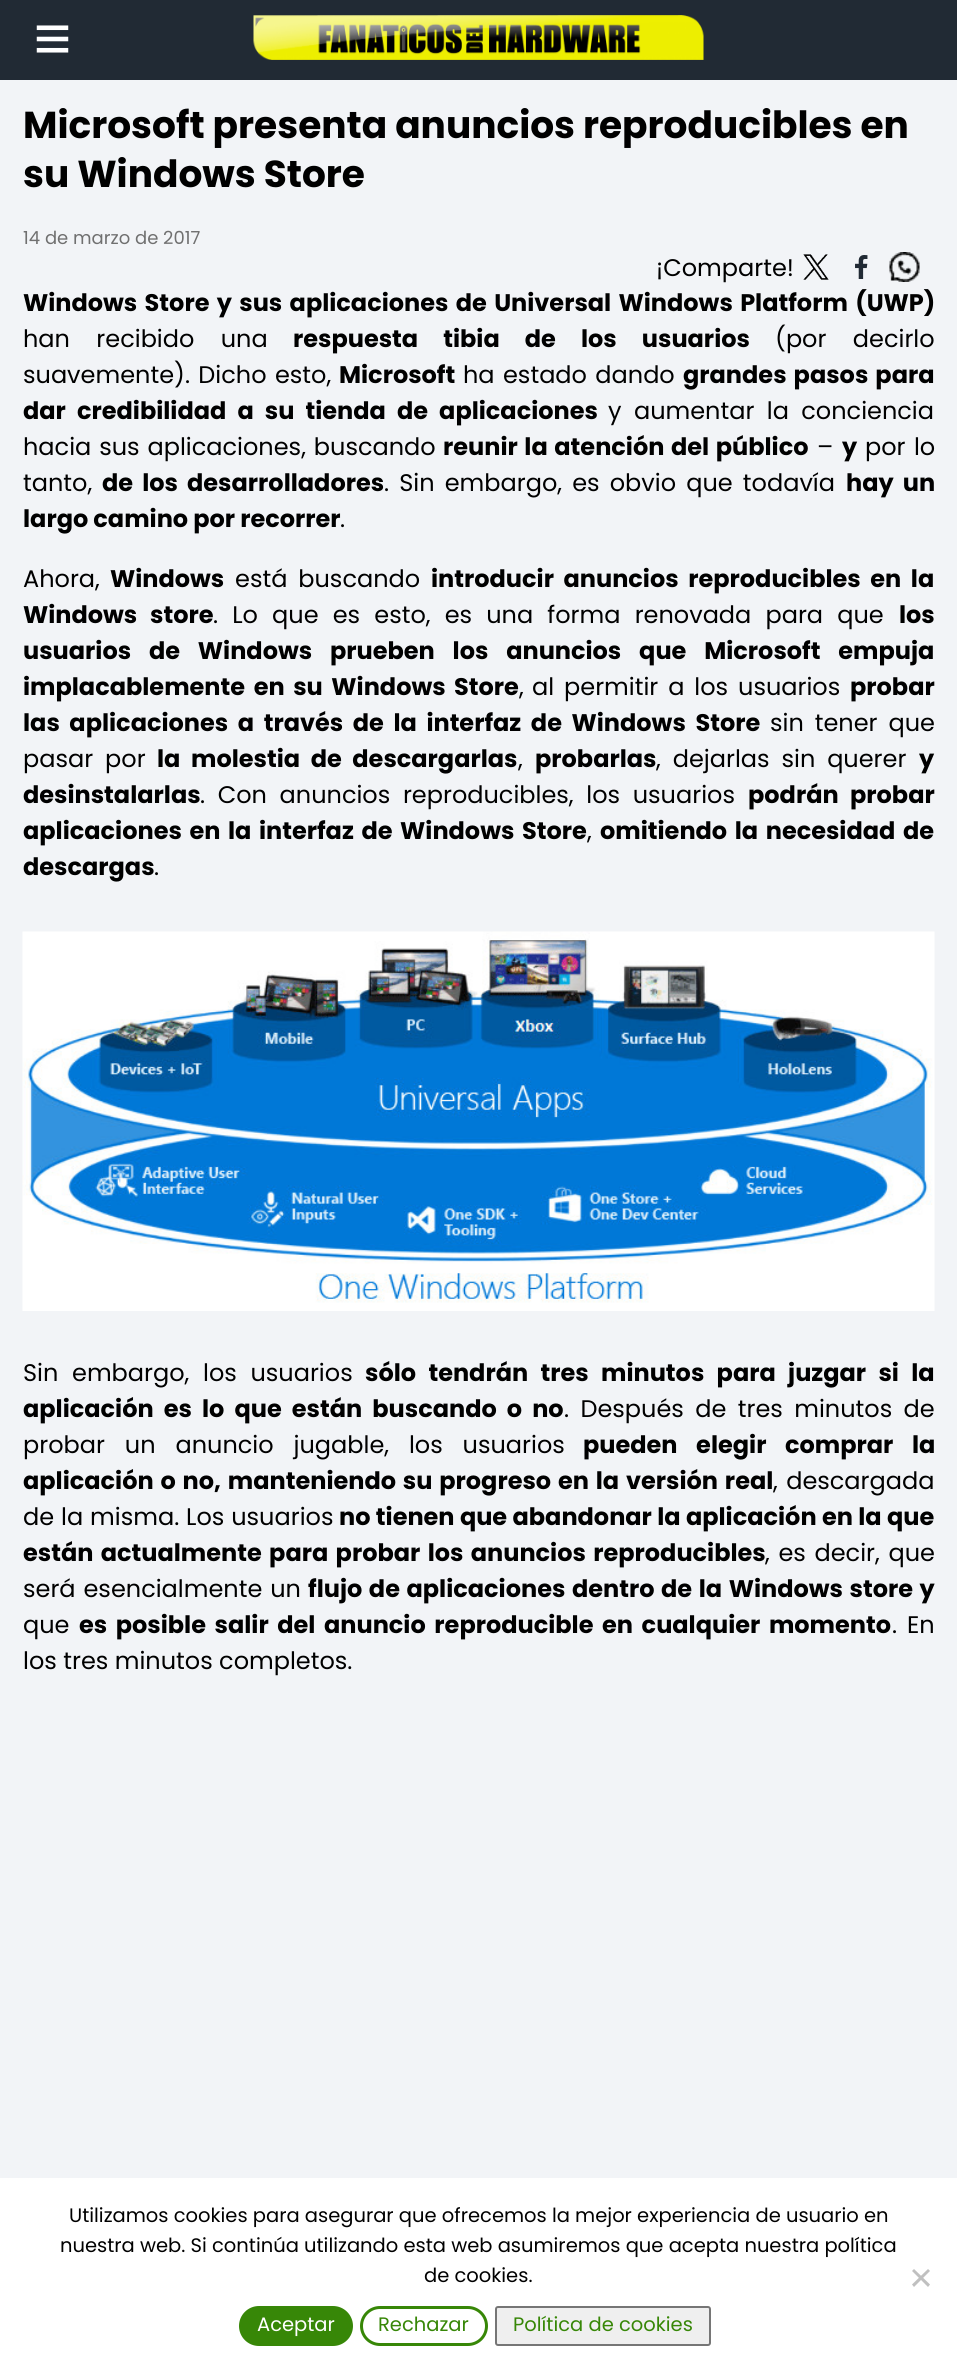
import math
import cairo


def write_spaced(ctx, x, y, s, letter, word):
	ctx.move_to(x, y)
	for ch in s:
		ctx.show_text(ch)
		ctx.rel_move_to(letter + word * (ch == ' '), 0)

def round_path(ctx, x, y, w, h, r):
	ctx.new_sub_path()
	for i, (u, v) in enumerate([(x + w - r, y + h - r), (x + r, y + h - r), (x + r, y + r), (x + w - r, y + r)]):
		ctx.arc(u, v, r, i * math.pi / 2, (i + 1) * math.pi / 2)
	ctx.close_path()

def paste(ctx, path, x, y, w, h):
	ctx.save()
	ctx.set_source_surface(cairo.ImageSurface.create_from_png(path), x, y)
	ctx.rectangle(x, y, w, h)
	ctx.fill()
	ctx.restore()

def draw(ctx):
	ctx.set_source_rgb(0.949, 0.957, 0.965)
	ctx.paint()
	ctx.set_source_rgb(0.129, 0.165, 0.204)
	ctx.rectangle(0, 0, 957, 80)
	ctx.fill()
	paste(ctx, 'media/1.png', 36, 25, 33, 28)
	paste(ctx, 'media/2.png', 253, 15, 451, 45)
	ctx.select_font_face('Poppins', cairo.FONT_SLANT_NORMAL, cairo.FONT_WEIGHT_BOLD)
	ctx.set_font_size(37.5)
	ctx.set_source_rgb(0, 0, 0)
	ctx.move_to(23, 138)
	ctx.show_text('Microsoft presenta anuncios reproducibles en')
	ctx.move_to(23, 187)
	ctx.show_text('su Windows Store')
	ctx.select_font_face('Poppins')
	ctx.set_font_size(18)
	ctx.set_source_rgb(0.439, 0.439, 0.439)
	ctx.move_to(23, 244)
	ctx.show_text('14 de marzo de 2017')
	ctx.set_font_size(24)
	ctx.set_source_rgb(0, 0, 0)
	ctx.move_to(656, 276)
	ctx.show_text('¡Comparte!')
	paste(ctx, 'media/3.png', 803, 254, 26, 26)
	paste(ctx, 'media/4.png', 855, 255, 13, 24)
	paste(ctx, 'media/5.png', 889, 252, 31, 30)
	ctx.select_font_face('Poppins', cairo.FONT_SLANT_NORMAL, cairo.FONT_WEIGHT_BOLD)
	write_spaced(ctx, 23, 311, 'Windows Store y sus aplicaciones de Universal Windows Platform (UWP)', 0, 2.25)
	ctx.select_font_face('Poppins')
	write_spaced(ctx, 23, 347, 'han recibido una', 0, 20)
	ctx.select_font_face('Poppins', cairo.FONT_SLANT_NORMAL, cairo.FONT_WEIGHT_BOLD)
	write_spaced(ctx, 293, 347, 'respuesta tibia de los usuarios', 0, 20)
	ctx.select_font_face('Poppins')
	write_spaced(ctx, 775, 347, '(por decirlo', 0, 20)
	write_spaced(ctx, 23, 383, 'suavemente). Dicho esto,', 0, 2)
	ctx.select_font_face('Poppins', cairo.FONT_SLANT_NORMAL, cairo.FONT_WEIGHT_BOLD)
	ctx.move_to(339, 383)
	ctx.show_text('Microsoft')
	ctx.select_font_face('Poppins')
	write_spaced(ctx, 463, 383, 'ha estado dando', 0, 2)
	ctx.select_font_face('Poppins', cairo.FONT_SLANT_NORMAL, cairo.FONT_WEIGHT_BOLD)
	write_spaced(ctx, 683, 383, 'grandes pasos para', 0, 2)
	write_spaced(ctx, 23, 419, 'dar credibilidad a su tienda de aplicaciones', 0, 6)
	ctx.select_font_face('Poppins')
	write_spaced(ctx, 608, 419, 'y aumentar la conciencia', 0, 6)
	write_spaced(ctx, 23, 455, 'hacia sus aplicaciones, buscando', 0, 1.5)
	ctx.select_font_face('Poppins', cairo.FONT_SLANT_NORMAL, cairo.FONT_WEIGHT_BOLD)
	write_spaced(ctx, 443, 455, 'reunir la atención del público', 0, 1.5)
	ctx.select_font_face('Poppins')
	ctx.move_to(817, 455)
	ctx.show_text('–')
	ctx.select_font_face('Poppins', cairo.FONT_SLANT_NORMAL, cairo.FONT_WEIGHT_BOLD)
	ctx.move_to(842, 455)
	ctx.show_text('y')
	ctx.select_font_face('Poppins')
	write_spaced(ctx, 865, 455, 'por lo', 0, 2)
	ctx.move_to(23, 491)
	ctx.show_text('tanto,')
	ctx.select_font_face('Poppins', cairo.FONT_SLANT_NORMAL, cairo.FONT_WEIGHT_BOLD)
	write_spaced(ctx, 102, 491, 'de los desarrolladores', 0, 4)
	ctx.select_font_face('Poppins')
	write_spaced(ctx, 384, 491, '. Sin embargo, es obvio que todavía', 0, 3.75)
	ctx.select_font_face('Poppins', cairo.FONT_SLANT_NORMAL, cairo.FONT_WEIGHT_BOLD)
	write_spaced(ctx, 846, 491, 'hay un', 0, 4)
	ctx.move_to(23, 527)
	ctx.show_text('largo camino por recorrer')
	ctx.select_font_face('Poppins')
	ctx.move_to(340, 527)
	ctx.show_text('.')
	ctx.move_to(23, 587)
	ctx.show_text('Ahora,')
	ctx.select_font_face('Poppins', cairo.FONT_SLANT_NORMAL, cairo.FONT_WEIGHT_BOLD)
	ctx.move_to(110, 587)
	ctx.show_text('Windows')
	ctx.select_font_face('Poppins')
	write_spaced(ctx, 235, 587, 'está buscando', 0, 4.5)
	ctx.select_font_face('Poppins', cairo.FONT_SLANT_NORMAL, cairo.FONT_WEIGHT_BOLD)
	write_spaced(ctx, 431, 587, 'introducir anuncios reproducibles en la', 0, 4.5)
	write_spaced(ctx, 23, 623, 'Windows store', 0, 7.75)
	ctx.select_font_face('Poppins')
	write_spaced(ctx, 213, 623, '. Lo que es esto, es una forma renovada para que', 0, 7.75)
	ctx.select_font_face('Poppins', cairo.FONT_SLANT_NORMAL, cairo.FONT_WEIGHT_BOLD)
	ctx.move_to(899, 623)
	ctx.show_text('los')
	write_spaced(ctx, 23, 659, 'usuarios de Windows prueben los anuncios que Microsoft empuja', 0, 12.75)
	write_spaced(ctx, 23, 695, 'implacablemente en su Windows', 0, 3.5)
	ctx.move_to(454, 695)
	ctx.show_text('Store')
	ctx.select_font_face('Poppins')
	ctx.move_to(519, 695)
	ctx.show_text(',')
	write_spaced(ctx, 532, 695, 'al permitir a los usuarios', 0, 3.5)
	ctx.select_font_face('Poppins', cairo.FONT_SLANT_NORMAL, cairo.FONT_WEIGHT_BOLD)
	ctx.move_to(850, 695)
	ctx.show_text('probar')
	write_spaced(ctx, 23, 731, 'las aplicaciones a través de la interfaz de Windows Store', 0, 4.5)
	ctx.select_font_face('Poppins')
	write_spaced(ctx, 770, 731, 'sin tener que', 0, 4.5)
	write_spaced(ctx, 23, 767, 'pasar por', 0, 5.5)
	ctx.select_font_face('Poppins', cairo.FONT_SLANT_NORMAL, cairo.FONT_WEIGHT_BOLD)
	write_spaced(ctx, 157, 767, 'la molestia de descargarlas', 0, 5.5)
	ctx.select_font_face('Poppins')
	ctx.move_to(518, 767)
	ctx.show_text(',')
	ctx.select_font_face('Poppins', cairo.FONT_SLANT_NORMAL, cairo.FONT_WEIGHT_BOLD)
	ctx.move_to(535, 767)
	ctx.show_text('probarlas')
	ctx.select_font_face('Poppins')
	write_spaced(ctx, 656, 767, ', dejarlas sin querer', 0, 5.5)
	ctx.select_font_face('Poppins', cairo.FONT_SLANT_NORMAL, cairo.FONT_WEIGHT_BOLD)
	ctx.move_to(919, 767)
	ctx.show_text('y')
	ctx.move_to(23, 803)
	ctx.show_text('desinstalarlas')
	ctx.select_font_face('Poppins')
	write_spaced(ctx, 200, 803, '. Con anuncios reproducibles, los usuarios', 0, 6.25)
	ctx.select_font_face('Poppins', cairo.FONT_SLANT_NORMAL, cairo.FONT_WEIGHT_BOLD)
	write_spaced(ctx, 748, 803, 'podrán probar', 0, 6.25)
	write_spaced(ctx, 23, 839, 'aplicaciones en la interfaz de Windows Store', 0, 2.5)
	ctx.select_font_face('Poppins')
	ctx.move_to(587, 839)
	ctx.show_text(',')
	ctx.select_font_face('Poppins', cairo.FONT_SLANT_NORMAL, cairo.FONT_WEIGHT_BOLD)
	write_spaced(ctx, 600, 839, 'omitiendo la necesidad de', 0, 2.5)
	ctx.move_to(23, 875)
	ctx.show_text('descargas')
	ctx.select_font_face('Poppins')
	ctx.move_to(154, 875)
	ctx.show_text('.')
	paste(ctx, 'media/6.png', 22, 931, 913, 380)
	write_spaced(ctx, 23, 1381, 'Sin embargo, los usuarios', 0, 7.25)
	ctx.select_font_face('Poppins', cairo.FONT_SLANT_NORMAL, cairo.FONT_WEIGHT_BOLD)
	write_spaced(ctx, 365, 1381, 'sólo tendrán tres minutos para juzgar si la', 0, 7.25)
	write_spaced(ctx, 23, 1417, 'aplicación es lo que están buscando o no', 0, 5)
	ctx.select_font_face('Poppins')
	write_spaced(ctx, 564, 1417, '. Después de tres minutos de', 0, 5)
	write_spaced(ctx, 23, 1453, 'probar un anuncio jugable, los usuarios', 0, 13.5)
	ctx.select_font_face('Poppins', cairo.FONT_SLANT_NORMAL, cairo.FONT_WEIGHT_BOLD)
	write_spaced(ctx, 583, 1453, 'pueden elegir comprar la', 0, 13.5)
	write_spaced(ctx, 23, 1489, 'aplicación o no, manteniendo su progreso en la versión real', 0, 1.75)
	ctx.select_font_face('Poppins')
	write_spaced(ctx, 773, 1489, ', descargada', 0, 2)
	write_spaced(ctx, 23, 1525, 'de la misma. Los usuarios', 0, 0.5)
	ctx.select_font_face('Poppins', cairo.FONT_SLANT_NORMAL, cairo.FONT_WEIGHT_BOLD)
	write_spaced(ctx, 339, 1525, 'no tienen que abandonar la aplicación en la que', 0, 0.25)
	write_spaced(ctx, 23, 1561, 'están actualmente para probar los anuncios reproducibles', 0, 2.25)
	ctx.select_font_face('Poppins')
	write_spaced(ctx, 765, 1561, ', es decir, que', 0, 2.25)
	write_spaced(ctx, 23, 1597, 'será esencialmente un', 0, 1.5)
	ctx.select_font_face('Poppins', cairo.FONT_SLANT_NORMAL, cairo.FONT_WEIGHT_BOLD)
	write_spaced(ctx, 308, 1597, 'flujo de aplicaciones dentro de la Windows store y', 0, 1.5)
	ctx.select_font_face('Poppins')
	ctx.move_to(23, 1633)
	ctx.show_text('que')
	ctx.select_font_face('Poppins', cairo.FONT_SLANT_NORMAL, cairo.FONT_WEIGHT_BOLD)
	write_spaced(ctx, 79, 1633, 'es posible salir del anuncio reproducible en cualquier momento', 0, 3.5)
	ctx.select_font_face('Poppins')
	write_spaced(ctx, 892, 1633, '. En', 0, 3.5)
	ctx.move_to(23, 1669)
	ctx.show_text('los tres minutos completos.')
	ctx.set_source_rgb(1, 1, 1)
	ctx.rectangle(0, 2178, 957, 198)
	ctx.fill()
	ctx.set_font_size(19.5)
	ctx.set_source_rgb(0, 0, 0)
	for x, y, s in [
		(69, 2222, 'Utilizamos cookies para asegurar que ofrecemos la mejor experiencia de usuario en'),
		(60, 2252, 'nuestra web. Si continúa utilizando esta web asumiremos que acepta nuestra política'),
		(424, 2282, 'de cookies.'),
	]:
		ctx.move_to(x, y)
		ctx.show_text(s)
	ctx.set_source_rgb(0.753, 0.753, 0.753)
	ctx.new_path()
	ctx.move_to(928, 2269)
	ctx.line_to(930, 2271)
	ctx.line_to(914, 2287)
	ctx.line_to(912, 2284.5)
	ctx.close_path()
	ctx.fill()
	ctx.new_path()
	ctx.move_to(912, 2271)
	ctx.line_to(914, 2269)
	ctx.line_to(930, 2284.5)
	ctx.line_to(928, 2287)
	ctx.close_path()
	ctx.fill()
	ctx.set_source_rgb(0.216, 0.529, 0.031)
	round_path(ctx, 240.5, 2307.5, 111, 37, 18.5)
	ctx.fill_preserve()
	ctx.set_line_width(3)
	ctx.stroke()
	ctx.set_source_rgb(1, 1, 1)
	ctx.move_to(257, 2331)
	ctx.show_text('Aceptar')
	round_path(ctx, 361.5, 2307.5, 125, 37, 18.5)
	ctx.set_source_rgb(0.216, 0.529, 0.031)
	ctx.stroke()
	ctx.move_to(378, 2331)
	ctx.show_text('Rechazar')
	ctx.set_source_rgb(0.937, 0.937, 0.937)
	round_path(ctx, 496, 2307, 214, 38, 2)
	ctx.fill_preserve()
	ctx.set_source_rgb(0.463, 0.463, 0.463)
	ctx.set_line_width(2)
	ctx.stroke()
	ctx.set_source_rgb(0.216, 0.529, 0.031)
	ctx.move_to(513, 2331)
	ctx.show_text('Política de cookies')


surface = cairo.ImageSurface(cairo.FORMAT_RGB24, 957, 2376)
ctx = cairo.Context(surface)
options = cairo.FontOptions()
options.set_hint_metrics(cairo.HINT_METRICS_OFF)
options.set_hint_style(cairo.HINT_STYLE_NONE)
ctx.set_font_options(options)
ctx.set_miter_limit(4)
draw(ctx)
surface.write_to_png('image.png')
